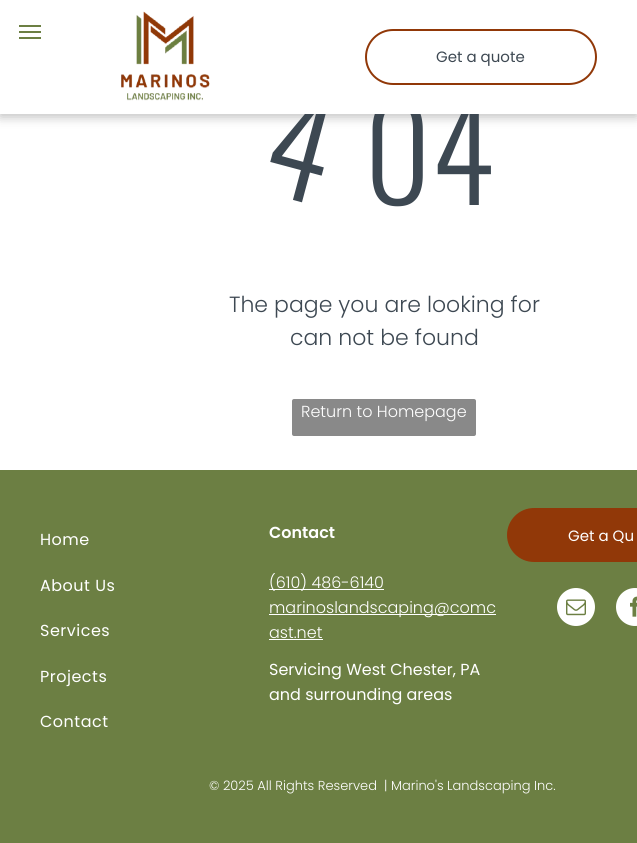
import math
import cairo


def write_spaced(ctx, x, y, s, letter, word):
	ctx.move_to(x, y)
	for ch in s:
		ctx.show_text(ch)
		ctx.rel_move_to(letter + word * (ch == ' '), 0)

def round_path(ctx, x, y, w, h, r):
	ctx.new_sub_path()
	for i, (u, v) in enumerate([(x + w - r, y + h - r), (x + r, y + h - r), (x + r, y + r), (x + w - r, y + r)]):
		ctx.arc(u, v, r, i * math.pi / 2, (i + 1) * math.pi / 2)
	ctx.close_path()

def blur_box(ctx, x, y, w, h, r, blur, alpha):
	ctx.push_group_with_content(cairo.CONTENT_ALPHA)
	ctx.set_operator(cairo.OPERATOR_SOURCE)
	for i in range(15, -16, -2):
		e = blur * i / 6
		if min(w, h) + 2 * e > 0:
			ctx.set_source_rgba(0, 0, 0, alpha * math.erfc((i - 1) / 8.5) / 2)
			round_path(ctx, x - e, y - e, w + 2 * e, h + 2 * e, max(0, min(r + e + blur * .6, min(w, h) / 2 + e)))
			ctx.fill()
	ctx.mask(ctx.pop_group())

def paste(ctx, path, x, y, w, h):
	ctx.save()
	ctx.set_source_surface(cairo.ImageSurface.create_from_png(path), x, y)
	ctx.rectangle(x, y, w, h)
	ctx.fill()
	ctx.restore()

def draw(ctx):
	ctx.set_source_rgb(1, 1, 1)
	ctx.paint()
	ctx.set_source_rgb(0, 0, 0)
	blur_box(ctx, 0, 3, 637, 114, 0, 5.5, 0.25)
	ctx.select_font_face('Oswald Light')
	ctx.set_font_size(130)
	ctx.set_source_rgb(0.239, 0.282, 0.322)
	ctx.save()
	ctx.translate(256, 190)
	ctx.rotate(15 * math.pi / 180)
	ctx.move_to(0, 0)
	ctx.show_text('4')
	ctx.restore()
	ctx.move_to(364, 205)
	ctx.show_text('04')
	ctx.set_source_rgb(1, 1, 1)
	ctx.rectangle(0, 0, 637, 114)
	ctx.fill()
	ctx.set_source_rgb(0.424, 0.498, 0.263)
	ctx.rectangle(19, 25, 22, 2)
	ctx.rectangle(19, 31, 22, 2)
	ctx.rectangle(19, 37, 22, 2)
	ctx.fill()
	paste(ctx, 'media/1.png', 121, 11, 89, 90)
	round_path(ctx, 366, 30, 230, 54, 27)
	ctx.set_source_rgb(0.569, 0.22, 0.035)
	ctx.stroke()
	ctx.select_font_face('Poppins')
	ctx.set_font_size(15)
	ctx.set_source_rgb(0.239, 0.282, 0.322)
	ctx.move_to(436, 62)
	ctx.show_text('Get a quote')
	ctx.select_font_face('Poppins Light')
	ctx.set_font_size(22)
	ctx.move_to(229, 312)
	ctx.show_text('The page you are looking for')
	ctx.move_to(290, 345)
	ctx.show_text('can not be found')
	ctx.set_source_rgb(0.537, 0.537, 0.537)
	round_path(ctx, 292, 399, 184, 37, 2)
	ctx.fill()
	ctx.set_font_size(16)
	ctx.set_source_rgb(1, 1, 1)
	ctx.move_to(301, 417)
	ctx.show_text('Return to Homepage')
	ctx.set_source_rgb(0.424, 0.498, 0.263)
	ctx.rectangle(0, 470, 637, 373)
	ctx.fill()
	ctx.select_font_face('Poppins')
	ctx.set_source_rgb(1, 1, 1)
	for x, y, s in [
		(40, 545, 'Home'),
		(40, 591, 'About Us'),
		(40, 636, 'Services'),
		(40, 682, 'Projects'),
		(40, 727, 'Contact'),
	]:
		write_spaced(ctx, x, y, s, 0.5, 0)
	ctx.select_font_face('Poppins SemiBold')
	ctx.move_to(269, 538)
	ctx.show_text('Contact')
	ctx.rectangle(269, 589, 115, 1)
	ctx.fill()
	ctx.select_font_face('Poppins Light')
	ctx.move_to(269, 588)
	ctx.show_text('(610) 486-6140')
	ctx.rectangle(269, 614, 227, 1)
	ctx.fill()
	ctx.move_to(269, 613)
	ctx.show_text('marinoslandscaping@comc')
	ctx.move_to(269, 638)
	ctx.show_text('ast.net')
	ctx.rectangle(269, 639, 54, 1)
	ctx.fill()
	ctx.select_font_face('Poppins')
	ctx.move_to(269, 675)
	ctx.show_text('Servicing West Chester, PA')
	ctx.move_to(269, 700)
	ctx.show_text('and surrounding areas')
	ctx.set_source_rgb(0.569, 0.22, 0.035)
	round_path(ctx, 507, 508, 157, 54, 27)
	ctx.fill()
	ctx.set_font_size(15)
	ctx.set_source_rgb(1, 1, 1)
	ctx.move_to(568, 541)
	ctx.show_text('Get a Qu')
	ctx.new_path()
	ctx.arc(576, 607, 19, 0, 2 * math.pi)
	ctx.fill()
	paste(ctx, 'media/2.png', 566, 599, 20, 17)
	ctx.arc(635, 607, 19, 0, 2 * math.pi)
	ctx.fill()
	paste(ctx, 'media/3.png', 630, 596, 7, 21)
	ctx.select_font_face('Poppins Light')
	ctx.set_font_size(13)
	ctx.move_to(209, 790)
	ctx.show_text('© 2025 All Rights Reserved  | Marino\'s Landscaping Inc.')


surface = cairo.ImageSurface(cairo.FORMAT_RGB24, 637, 843)
ctx = cairo.Context(surface)
options = cairo.FontOptions()
options.set_hint_metrics(cairo.HINT_METRICS_OFF)
options.set_hint_style(cairo.HINT_STYLE_NONE)
ctx.set_font_options(options)
ctx.set_miter_limit(4)
draw(ctx)
surface.write_to_png('image.png')
